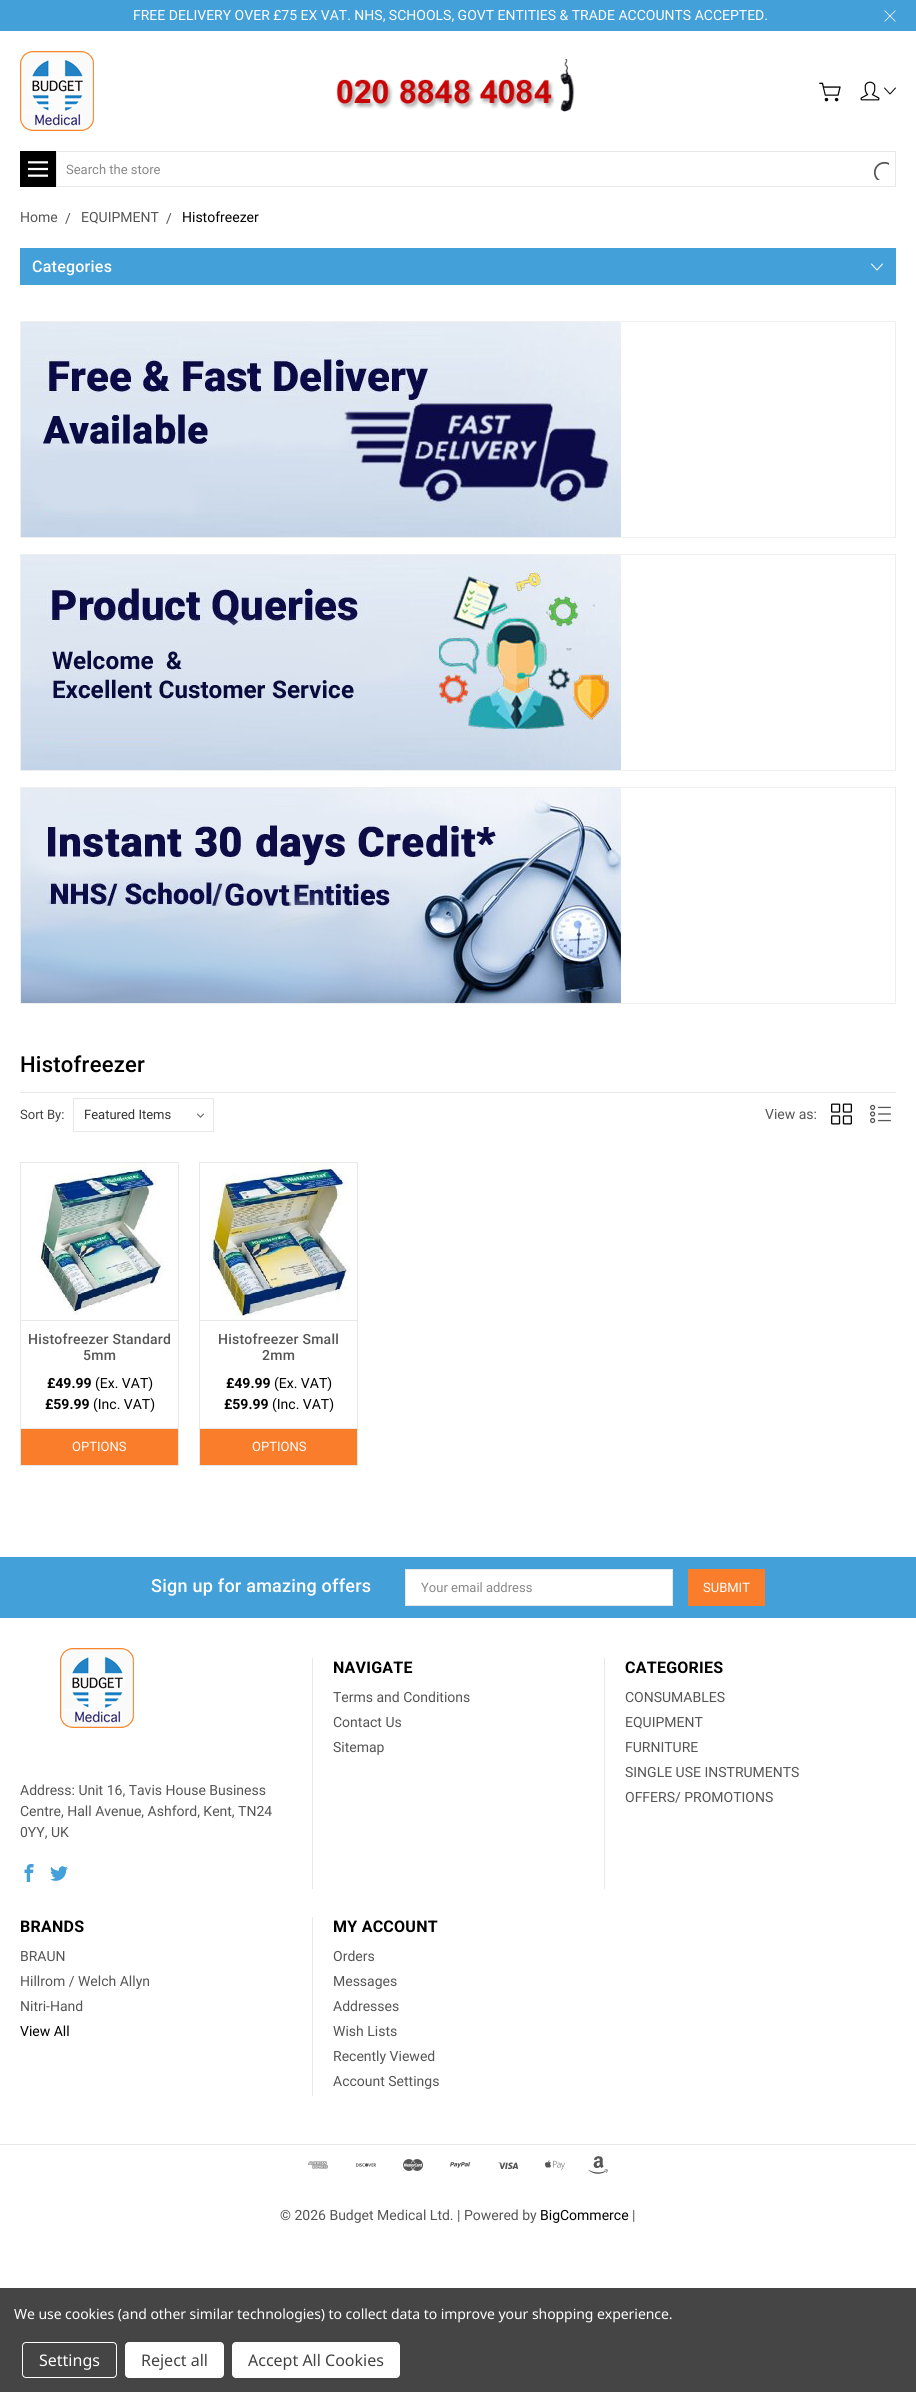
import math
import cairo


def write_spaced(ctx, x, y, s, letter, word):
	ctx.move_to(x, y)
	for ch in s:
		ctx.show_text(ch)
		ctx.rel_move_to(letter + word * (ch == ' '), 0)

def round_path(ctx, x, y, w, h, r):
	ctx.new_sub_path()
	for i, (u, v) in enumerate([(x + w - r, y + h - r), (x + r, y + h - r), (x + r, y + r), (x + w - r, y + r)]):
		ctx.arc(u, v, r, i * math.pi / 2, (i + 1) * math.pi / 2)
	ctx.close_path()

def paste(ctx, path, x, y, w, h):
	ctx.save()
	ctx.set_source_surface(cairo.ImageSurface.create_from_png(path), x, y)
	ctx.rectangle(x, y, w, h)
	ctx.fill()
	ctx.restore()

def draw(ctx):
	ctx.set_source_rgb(1, 1, 1)
	ctx.paint()
	ctx.set_source_rgb(0.263, 0.627, 0.847)
	ctx.rectangle(0, 0, 916, 31)
	ctx.fill()
	ctx.select_font_face('Roboto')
	ctx.set_font_size(14)
	ctx.set_source_rgb(1, 1, 1)
	ctx.move_to(133, 20)
	ctx.show_text('FREE DELIVERY OVER £75 EX VAT. NHS, SCHOOLS, GOVT ENTITIES & TRADE ACCOUNTS ACCEPTED.')
	paste(ctx, 'media/1.png', 884, 10, 12, 12)
	paste(ctx, 'media/2.png', 20, 51, 74, 80)
	paste(ctx, 'media/3.png', 336, 59, 239, 53)
	paste(ctx, 'media/4.png', 819, 82, 22, 20)
	paste(ctx, 'media/5.png', 860, 81, 20, 20)
	paste(ctx, 'media/6.png', 884, 87, 12, 8)
	ctx.set_source_rgb(0, 0, 0)
	ctx.rectangle(20, 151, 36, 36)
	ctx.fill()
	paste(ctx, 'media/7.png', 28, 161, 20, 16)
	ctx.rectangle(56.5, 151.5, 839, 35)
	ctx.set_source_rgb(0.91, 0.91, 0.91)
	ctx.set_line_width(1)
	ctx.stroke()
	ctx.set_font_size(13)
	ctx.set_source_rgb(0.533, 0.533, 0.533)
	ctx.move_to(66, 174)
	ctx.show_text('Search the store')
	paste(ctx, 'media/8.png', 873, 161, 16, 19)
	ctx.set_font_size(14)
	ctx.set_source_rgb(0.333, 0.333, 0.333)
	for x, y, s in [
		(20, 222, 'Home'),
		(65, 223, '/'),
		(81, 222, 'EQUIPMENT'),
		(166, 223, '/'),
	]:
		ctx.move_to(x, y)
		ctx.show_text(s)
	ctx.set_source_rgb(0, 0, 0)
	ctx.move_to(182, 222)
	ctx.show_text('Histofreezer')
	ctx.set_source_rgb(0.263, 0.627, 0.847)
	ctx.rectangle(20, 248, 876, 37)
	ctx.fill()
	ctx.select_font_face('Roboto Medium')
	ctx.set_font_size(16)
	ctx.set_source_rgb(1, 1, 1)
	write_spaced(ctx, 32, 272, 'Categories', 0.25, 0)
	paste(ctx, 'media/9.png', 871, 263, 12, 8)
	ctx.rectangle(20.5, 321.5, 875, 216)
	ctx.set_source_rgb(0.937, 0.937, 0.937)
	ctx.stroke()
	paste(ctx, 'media/10.png', 21, 322, 600, 215)
	ctx.rectangle(20.5, 554.5, 875, 216)
	ctx.stroke()
	paste(ctx, 'media/11.png', 21, 555, 600, 215)
	ctx.rectangle(20.5, 787.5, 875, 216)
	ctx.stroke()
	paste(ctx, 'media/12.png', 21, 788, 600, 215)
	ctx.set_source_rgb(0.91, 0.91, 0.91)
	ctx.rectangle(20, 1092, 876, 1)
	ctx.fill()
	ctx.set_font_size(22)
	ctx.set_source_rgb(0, 0, 0)
	write_spaced(ctx, 20, 1072, 'Histofreezer', 0.25, 0)
	ctx.select_font_face('Roboto')
	ctx.set_font_size(13)
	ctx.set_source_rgb(0.259, 0.259, 0.259)
	ctx.move_to(20, 1119)
	ctx.show_text('Sort By:')
	paste(ctx, 'media/13.png', 196, 1113, 9, 5)
	ctx.rectangle(73.5, 1098.5, 140, 33)
	ctx.set_source_rgb(0.91, 0.91, 0.91)
	ctx.stroke()
	ctx.set_source_rgb(0.2, 0.2, 0.2)
	ctx.move_to(84, 1119)
	ctx.show_text('Featured Items')
	ctx.set_font_size(14)
	ctx.set_source_rgb(0.333, 0.333, 0.333)
	ctx.move_to(765, 1119)
	ctx.show_text('View as:')
	paste(ctx, 'media/14.png', 831, 1103, 21, 22)
	paste(ctx, 'media/15.png', 870, 1104, 21, 20)
	ctx.rectangle(20.5, 1162.5, 158, 303)
	ctx.set_source_rgb(0.91, 0.91, 0.91)
	ctx.stroke()
	paste(ctx, 'media/16.png', 37, 1163, 129, 152)
	ctx.rectangle(21, 1320, 157, 1)
	ctx.fill()
	ctx.select_font_face('Roboto Medium')
	ctx.set_source_rgb(0.333, 0.333, 0.333)
	write_spaced(ctx, 28, 1344, 'Histofreezer Standard', 0.25, 0)
	write_spaced(ctx, 83, 1360, '5mm', 0.25, 0)
	ctx.select_font_face('Roboto', cairo.FONT_SLANT_NORMAL, cairo.FONT_WEIGHT_BOLD)
	ctx.set_source_rgb(0, 0, 0)
	ctx.move_to(47, 1388)
	ctx.show_text('£49.99')
	ctx.select_font_face('Roboto')
	ctx.move_to(95, 1388)
	ctx.show_text('(Ex. VAT)')
	ctx.select_font_face('Roboto', cairo.FONT_SLANT_NORMAL, cairo.FONT_WEIGHT_BOLD)
	ctx.move_to(45, 1409)
	ctx.show_text('£59.99')
	ctx.select_font_face('Roboto')
	ctx.move_to(93, 1409)
	ctx.show_text('(Inc. VAT)')
	ctx.set_source_rgb(0.91, 0.91, 0.91)
	ctx.rectangle(21, 1428, 157, 1)
	ctx.fill()
	ctx.set_source_rgb(0.976, 0.49, 0.169)
	ctx.rectangle(21, 1429, 157, 36)
	ctx.fill()
	ctx.set_font_size(13)
	ctx.set_source_rgb(1, 1, 1)
	ctx.move_to(72, 1451)
	ctx.show_text('OPTIONS')
	ctx.rectangle(199.5, 1162.5, 158, 303)
	ctx.set_source_rgb(0.91, 0.91, 0.91)
	ctx.stroke()
	paste(ctx, 'media/17.png', 210, 1163, 137, 157)
	ctx.rectangle(200, 1320, 157, 1)
	ctx.fill()
	ctx.select_font_face('Roboto Medium')
	ctx.set_font_size(14)
	ctx.set_source_rgb(0.333, 0.333, 0.333)
	write_spaced(ctx, 218, 1344, 'Histofreezer Small', 0.25, 0)
	write_spaced(ctx, 262, 1360, '2mm', 0.25, 0)
	ctx.select_font_face('Roboto', cairo.FONT_SLANT_NORMAL, cairo.FONT_WEIGHT_BOLD)
	ctx.set_source_rgb(0, 0, 0)
	ctx.move_to(226, 1388)
	ctx.show_text('£49.99')
	ctx.select_font_face('Roboto')
	ctx.move_to(274, 1388)
	ctx.show_text('(Ex. VAT)')
	ctx.select_font_face('Roboto', cairo.FONT_SLANT_NORMAL, cairo.FONT_WEIGHT_BOLD)
	ctx.move_to(224, 1409)
	ctx.show_text('£59.99')
	ctx.select_font_face('Roboto')
	ctx.move_to(272, 1409)
	ctx.show_text('(Inc. VAT)')
	ctx.set_source_rgb(0.91, 0.91, 0.91)
	ctx.rectangle(200, 1428, 157, 1)
	ctx.fill()
	ctx.set_source_rgb(0.976, 0.49, 0.169)
	ctx.rectangle(200, 1429, 157, 36)
	ctx.fill()
	ctx.set_font_size(13)
	ctx.set_source_rgb(1, 1, 1)
	ctx.move_to(252, 1451)
	ctx.show_text('OPTIONS')
	ctx.set_source_rgb(0.263, 0.627, 0.847)
	ctx.rectangle(0, 1557, 916, 61)
	ctx.fill()
	ctx.select_font_face('Roboto Medium')
	ctx.set_font_size(18)
	ctx.set_source_rgb(1, 1, 1)
	write_spaced(ctx, 151, 1592, 'Sign up for amazing offers', 0.25, 0)
	ctx.rectangle(405.5, 1569.5, 267, 36)
	ctx.fill_preserve()
	ctx.set_source_rgb(0.91, 0.91, 0.91)
	ctx.stroke()
	ctx.select_font_face('Roboto')
	ctx.set_font_size(13)
	ctx.set_source_rgb(0.533, 0.533, 0.533)
	ctx.move_to(421, 1592)
	ctx.show_text('Your email address')
	ctx.set_source_rgb(0.976, 0.49, 0.169)
	ctx.rectangle(688, 1569, 77, 37)
	ctx.fill()
	ctx.set_source_rgb(1, 1, 1)
	ctx.move_to(703, 1592)
	ctx.show_text('SUBMIT')
	ctx.set_source_rgb(0.91, 0.91, 0.91)
	ctx.rectangle(312, 1658, 1, 231)
	ctx.fill()
	ctx.select_font_face('Roboto', cairo.FONT_SLANT_NORMAL, cairo.FONT_WEIGHT_BOLD)
	ctx.set_font_size(16)
	ctx.set_source_rgb(0, 0, 0)
	write_spaced(ctx, 333, 1673, 'NAVIGATE', 0.25, 0)
	ctx.select_font_face('Roboto')
	ctx.set_font_size(14)
	ctx.set_source_rgb(0.333, 0.333, 0.333)
	for x, y, s in [
		(333, 1702, 'Terms and Conditions'),
		(333, 1727, 'Contact Us'),
		(333, 1752, 'Sitemap'),
	]:
		ctx.move_to(x, y)
		ctx.show_text(s)
	ctx.set_source_rgb(0.91, 0.91, 0.91)
	ctx.rectangle(604, 1658, 1, 231)
	ctx.fill()
	ctx.select_font_face('Roboto', cairo.FONT_SLANT_NORMAL, cairo.FONT_WEIGHT_BOLD)
	ctx.set_font_size(16)
	ctx.set_source_rgb(0, 0, 0)
	write_spaced(ctx, 625, 1673, 'CATEGORIES', 0.25, 0)
	ctx.select_font_face('Roboto')
	ctx.set_font_size(14)
	ctx.set_source_rgb(0.333, 0.333, 0.333)
	for x, y, s in [
		(625, 1702, 'CONSUMABLES'),
		(625, 1727, 'EQUIPMENT'),
		(625, 1752, 'FURNITURE'),
		(625, 1777, 'SINGLE USE INSTRUMENTS'),
		(625, 1802, 'OFFERS/ PROMOTIONS'),
	]:
		ctx.move_to(x, y)
		ctx.show_text(s)
	paste(ctx, 'media/2.png', 60, 1648, 74, 80)
	for x, y, s in [
		(20, 1795, 'Address: Unit 16, Tavis House Business'),
		(20, 1816, 'Centre, Hall Avenue, Ashford, Kent, TN24'),
		(20, 1837, '0YY, UK'),
	]:
		ctx.move_to(x, y)
		ctx.show_text(s)
	paste(ctx, 'media/18.png', 24, 1864, 10, 18)
	paste(ctx, 'media/19.png', 50, 1866, 18, 15)
	ctx.select_font_face('Roboto', cairo.FONT_SLANT_NORMAL, cairo.FONT_WEIGHT_BOLD)
	ctx.set_font_size(16)
	ctx.set_source_rgb(0, 0, 0)
	write_spaced(ctx, 20, 1932, 'BRANDS', 0.25, 0)
	ctx.select_font_face('Roboto')
	ctx.set_font_size(14)
	ctx.set_source_rgb(0.333, 0.333, 0.333)
	for x, y, s in [
		(20, 1961, 'BRAUN'),
		(20, 1986, 'Hillrom / Welch Allyn'),
		(20, 2011, 'Nitri-Hand'),
	]:
		ctx.move_to(x, y)
		ctx.show_text(s)
	ctx.set_source_rgb(0, 0, 0)
	ctx.move_to(20, 2036)
	ctx.show_text('View All')
	ctx.set_source_rgb(0.91, 0.91, 0.91)
	ctx.rectangle(312, 1917, 1, 179)
	ctx.fill()
	ctx.select_font_face('Roboto', cairo.FONT_SLANT_NORMAL, cairo.FONT_WEIGHT_BOLD)
	ctx.set_font_size(16)
	ctx.set_source_rgb(0, 0, 0)
	write_spaced(ctx, 333, 1932, 'MY ACCOUNT', 0.25, 0)
	ctx.select_font_face('Roboto')
	ctx.set_font_size(14)
	ctx.set_source_rgb(0.333, 0.333, 0.333)
	for x, y, s in [
		(333, 1961, 'Orders'),
		(333, 1986, 'Messages'),
		(333, 2011, 'Addresses'),
		(333, 2036, 'Wish Lists'),
		(333, 2061, 'Recently Viewed'),
		(333, 2086, 'Account Settings'),
	]:
		ctx.move_to(x, y)
		ctx.show_text(s)
	ctx.set_source_rgb(0.91, 0.91, 0.91)
	ctx.rectangle(0, 2144, 916, 1)
	ctx.fill()
	paste(ctx, 'media/20.png', 308, 2161, 20, 8)
	paste(ctx, 'media/21.png', 356, 2163, 20, 4)
	paste(ctx, 'media/22.png', 403, 2159, 20, 12)
	paste(ctx, 'media/23.png', 450, 2162, 20, 6)
	paste(ctx, 'media/24.png', 498, 2162, 21, 8)
	paste(ctx, 'media/25.png', 545, 2160, 20, 10)
	paste(ctx, 'media/26.png', 588, 2156, 20, 18)
	ctx.set_source_rgb(0.333, 0.333, 0.333)
	ctx.move_to(280, 2220)
	ctx.show_text('© 2026 Budget Medical Ltd. | Powered by')
	ctx.set_source_rgb(0, 0, 0)
	ctx.move_to(540, 2220)
	ctx.show_text('BigCommerce')
	ctx.set_source_rgb(0.333, 0.333, 0.333)
	ctx.move_to(632, 2220)
	ctx.show_text('|')
	ctx.set_source_rgb(0.271, 0.271, 0.271)
	ctx.rectangle(0, 2288, 916, 104)
	ctx.fill()
	ctx.select_font_face('Noto Sans')
	ctx.set_source_rgb(1, 1, 1)
	write_spaced(ctx, 14, 2319, 'We use cookies (and other similar technologies) to collect data to improve your shopping experience.', -0.05, 0)
	round_path(ctx, 22.5, 2342.5, 94, 35, 3.5)
	ctx.stroke()
	ctx.set_font_size(16)
	ctx.move_to(39, 2366)
	ctx.show_text('Settings')
	round_path(ctx, 125, 2342, 99, 36, 4)
	ctx.fill()
	ctx.set_source_rgb(0.259, 0.259, 0.259)
	ctx.move_to(141, 2366)
	ctx.show_text('Reject all')
	ctx.set_source_rgb(1, 1, 1)
	round_path(ctx, 232, 2342, 168, 36, 4)
	ctx.fill()
	ctx.set_source_rgb(0.259, 0.259, 0.259)
	ctx.move_to(248, 2366)
	ctx.show_text('Accept All Cookies')


surface = cairo.ImageSurface(cairo.FORMAT_RGB24, 916, 2392)
ctx = cairo.Context(surface)
options = cairo.FontOptions()
options.set_hint_metrics(cairo.HINT_METRICS_OFF)
options.set_hint_style(cairo.HINT_STYLE_NONE)
ctx.set_font_options(options)
ctx.set_miter_limit(4)
draw(ctx)
surface.write_to_png('image.png')
